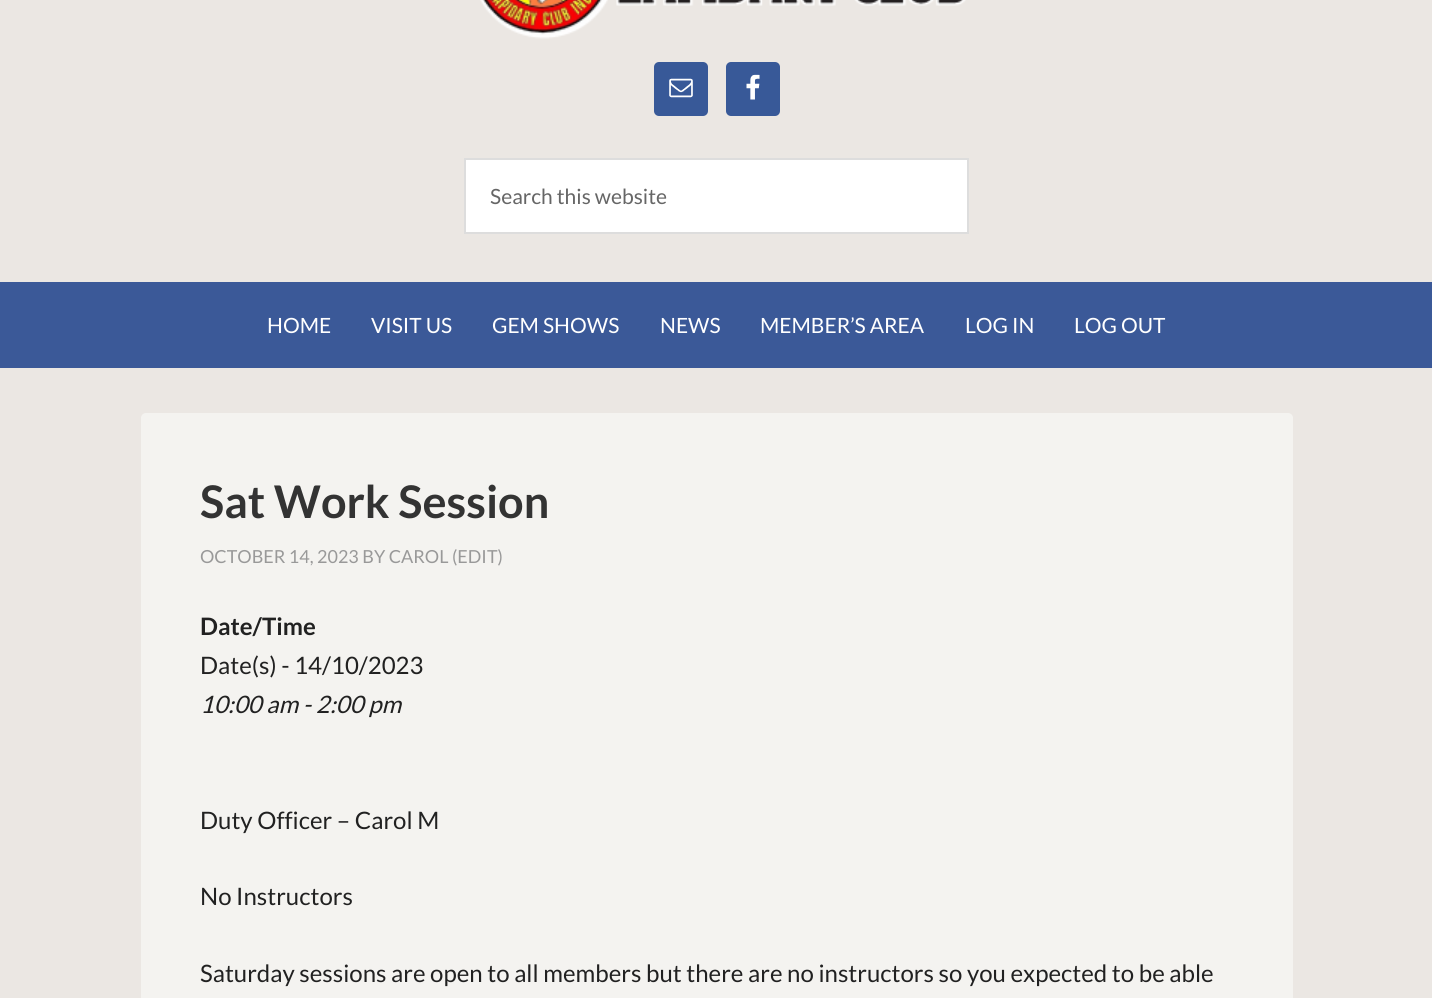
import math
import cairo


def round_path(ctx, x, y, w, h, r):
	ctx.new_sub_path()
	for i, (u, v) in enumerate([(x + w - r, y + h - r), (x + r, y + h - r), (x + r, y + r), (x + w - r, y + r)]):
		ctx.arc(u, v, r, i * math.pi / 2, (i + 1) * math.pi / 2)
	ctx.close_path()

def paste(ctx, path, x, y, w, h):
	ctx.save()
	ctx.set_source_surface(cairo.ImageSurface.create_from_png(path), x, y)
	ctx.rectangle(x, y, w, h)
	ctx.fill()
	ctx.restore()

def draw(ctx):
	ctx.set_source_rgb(0.918, 0.906, 0.89)
	ctx.paint()
	paste(ctx, 'media/1.png', 480, 0, 486, 39)
	ctx.set_source_rgb(0.22, 0.349, 0.596)
	round_path(ctx, 654, 62, 54, 54, 5)
	ctx.fill()
	paste(ctx, 'media/2.png', 669, 78, 24, 20)
	round_path(ctx, 726, 62, 54, 54, 5)
	ctx.fill()
	paste(ctx, 'media/3.png', 746, 74, 14, 26)
	ctx.set_source_rgb(1, 1, 1)
	ctx.rectangle(465, 159, 503, 74)
	ctx.fill_preserve()
	ctx.set_source_rgb(0.867, 0.867, 0.867)
	ctx.stroke()
	ctx.select_font_face('Lato')
	ctx.set_font_size(21)
	ctx.set_source_rgb(0.4, 0.4, 0.4)
	ctx.move_to(490, 204)
	ctx.show_text('Search this website')
	ctx.set_source_rgb(0.231, 0.349, 0.596)
	ctx.rectangle(0, 282, 1432, 86)
	ctx.fill()
	ctx.set_source_rgb(1, 1, 1)
	for x, y, s in [
		(267, 333, 'HOME'),
		(371, 333, 'VISIT US'),
		(492, 333, 'GEM SHOWS'),
		(660, 333, 'NEWS'),
		(760, 333, 'MEMBER’S AREA'),
		(965, 333, 'LOG IN'),
		(1074, 333, 'LOG OUT'),
	]:
		ctx.move_to(x, y)
		ctx.show_text(s)
	ctx.set_source_rgb(0.957, 0.953, 0.941)
	round_path(ctx, 141, 413, 1152, 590, 5)
	ctx.fill()
	ctx.select_font_face('Lato', cairo.FONT_SLANT_NORMAL, cairo.FONT_WEIGHT_BOLD)
	ctx.set_font_size(45)
	ctx.set_source_rgb(0.2, 0.2, 0.2)
	ctx.move_to(200, 518)
	ctx.show_text('Sat Work Session')
	ctx.select_font_face('Lato')
	ctx.set_font_size(18)
	ctx.set_source_rgb(0.6, 0.6, 0.6)
	ctx.move_to(200, 563)
	ctx.show_text('OCTOBER 14, 2023 BY CAROL (EDIT)')
	ctx.select_font_face('Lato', cairo.FONT_SLANT_NORMAL, cairo.FONT_WEIGHT_BOLD)
	ctx.set_font_size(24)
	ctx.set_source_rgb(0.129, 0.129, 0.129)
	ctx.move_to(200, 635)
	ctx.show_text('Date/Time')
	ctx.select_font_face('Lato')
	ctx.move_to(200, 674)
	ctx.show_text('Date(s) - 14/10/2023')
	ctx.select_font_face('Lato', cairo.FONT_SLANT_ITALIC)
	ctx.move_to(200, 713)
	ctx.show_text('10:00 am - 2:00 pm')
	ctx.select_font_face('Lato')
	for x, y, s in [
		(200, 829, 'Duty Officer – Carol M'),
		(200, 905, 'No Instructors'),
		(200, 982, 'Saturday sessions are open to all members but there are no instructors so you expected to be able'),
	]:
		ctx.move_to(x, y)
		ctx.show_text(s)


surface = cairo.ImageSurface(cairo.FORMAT_RGB24, 1432, 998)
ctx = cairo.Context(surface)
options = cairo.FontOptions()
options.set_hint_metrics(cairo.HINT_METRICS_OFF)
options.set_hint_style(cairo.HINT_STYLE_NONE)
ctx.set_font_options(options)
ctx.set_miter_limit(4)
draw(ctx)
surface.write_to_png('image.png')
